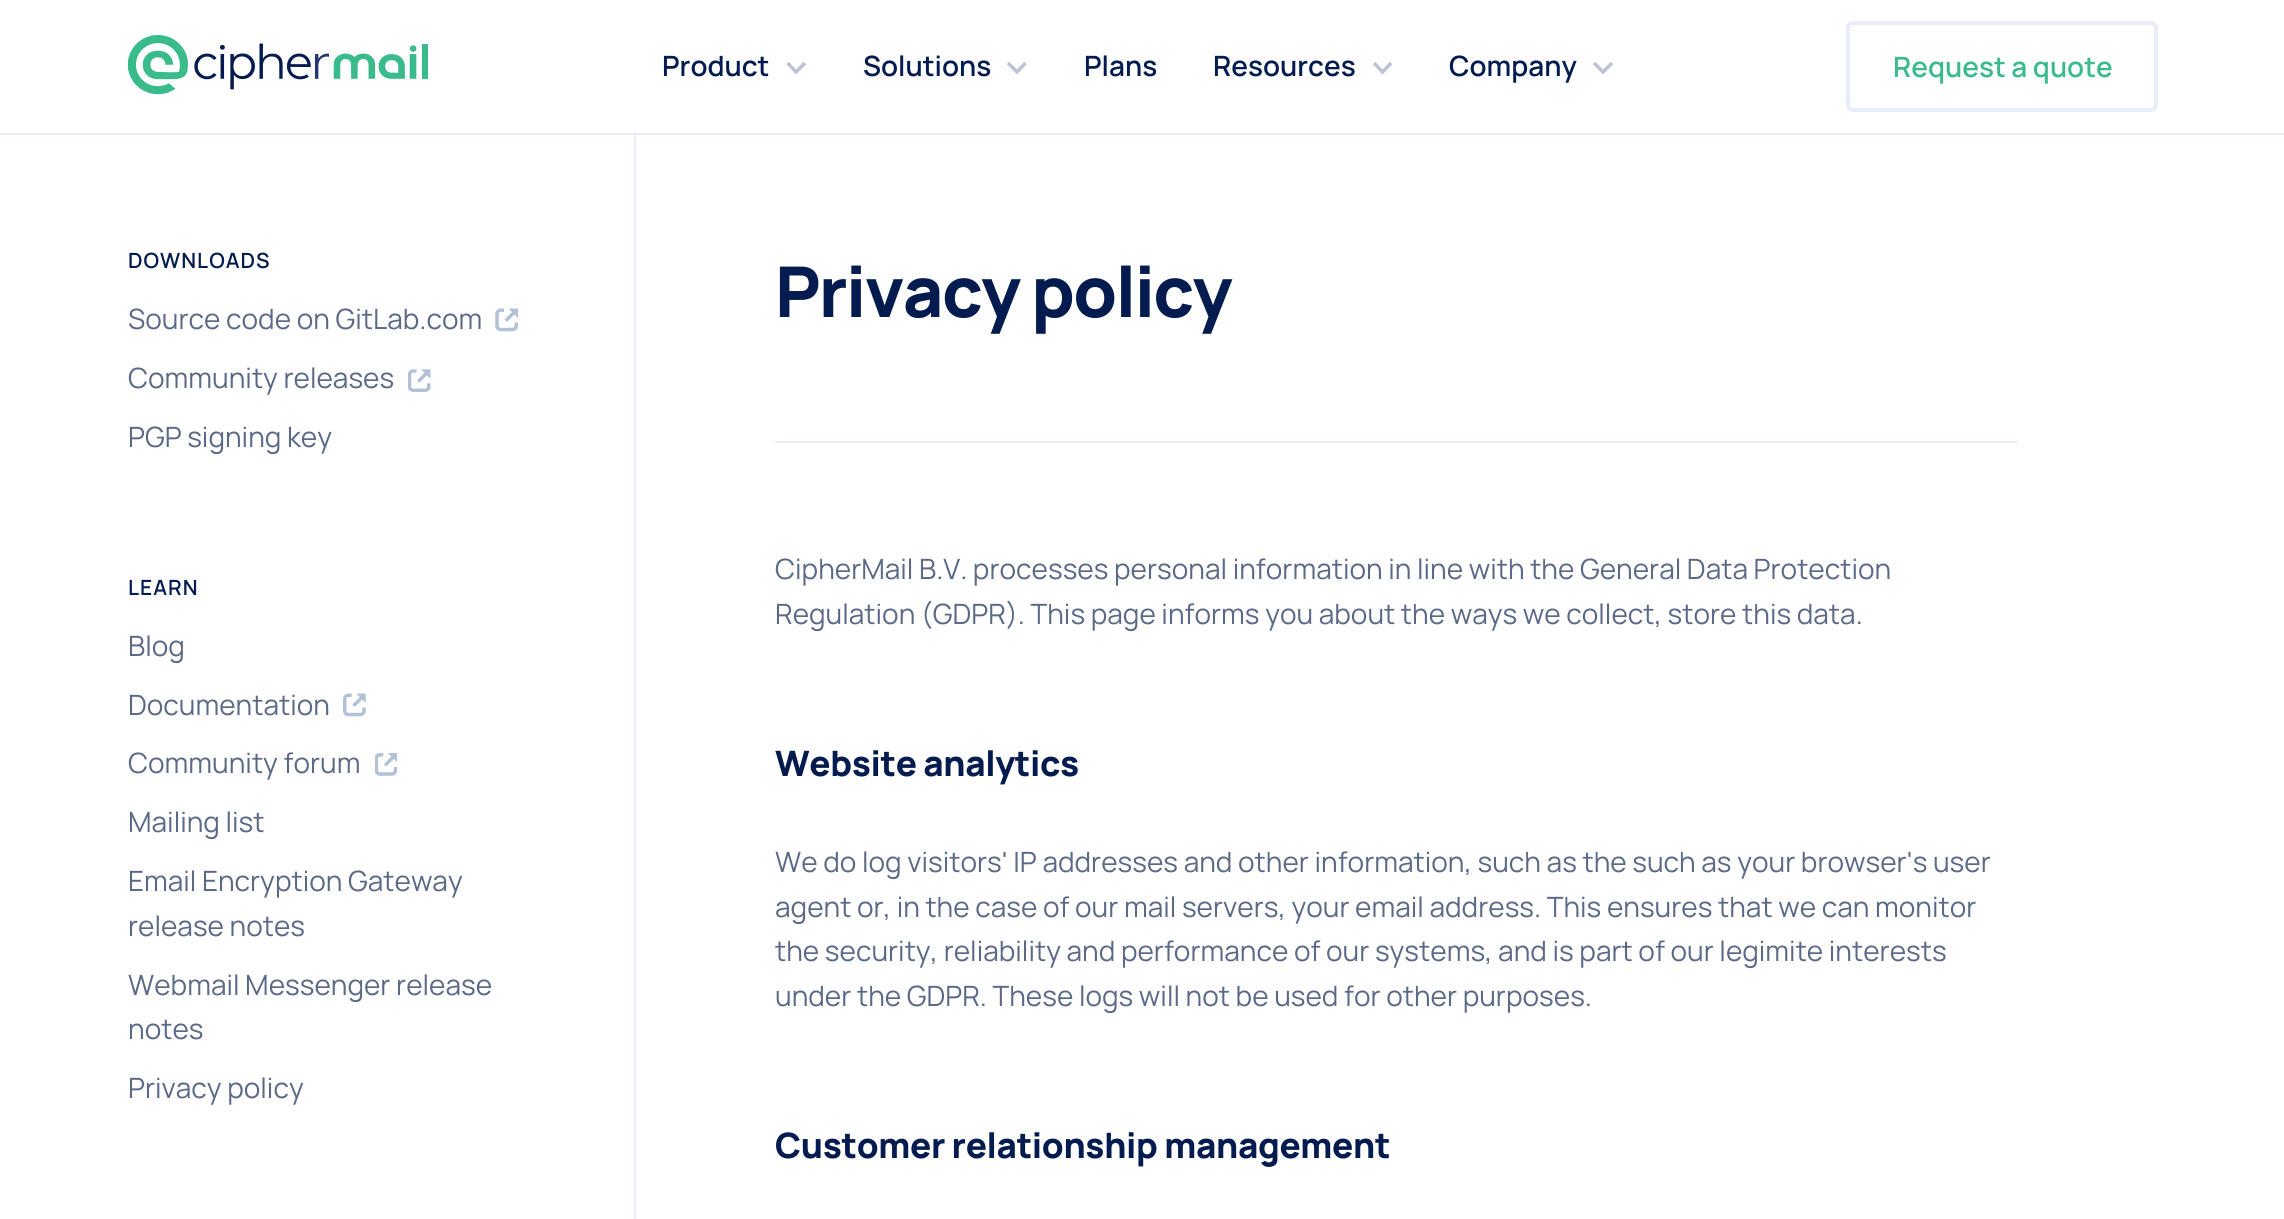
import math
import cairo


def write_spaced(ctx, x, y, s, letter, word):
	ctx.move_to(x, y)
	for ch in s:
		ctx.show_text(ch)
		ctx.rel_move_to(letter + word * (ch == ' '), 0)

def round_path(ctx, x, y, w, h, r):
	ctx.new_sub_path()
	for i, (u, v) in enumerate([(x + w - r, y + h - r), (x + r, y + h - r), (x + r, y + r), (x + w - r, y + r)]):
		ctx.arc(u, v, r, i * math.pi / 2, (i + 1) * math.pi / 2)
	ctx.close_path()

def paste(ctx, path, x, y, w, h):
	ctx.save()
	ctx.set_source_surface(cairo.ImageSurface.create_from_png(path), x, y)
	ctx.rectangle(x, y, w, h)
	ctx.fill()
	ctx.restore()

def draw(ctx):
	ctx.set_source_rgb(1, 1, 1)
	ctx.paint()
	ctx.set_source_rgb(0.906, 0.929, 0.973)
	ctx.rectangle(0, 133, 2284, 2)
	ctx.fill()
	paste(ctx, 'media/1.png', 128, 35, 300, 60)
	ctx.select_font_face('Manrope SemiBold')
	ctx.set_font_size(28)
	ctx.set_source_rgb(0.012, 0.106, 0.306)
	ctx.move_to(662, 76)
	ctx.show_text('Product')
	ctx.new_path()
	ctx.move_to(787.5, 63)
	ctx.line_to(796, 72)
	ctx.line_to(805, 63)
	ctx.set_source_rgb(0.741, 0.761, 0.831)
	ctx.set_line_width(3.5)
	ctx.stroke()
	ctx.set_source_rgb(0.012, 0.106, 0.306)
	ctx.move_to(863, 76)
	ctx.show_text('Solutions')
	ctx.new_path()
	ctx.move_to(1008, 63)
	ctx.line_to(1017, 72)
	ctx.line_to(1025.5, 63)
	ctx.set_source_rgb(0.741, 0.761, 0.831)
	ctx.stroke()
	ctx.set_source_rgb(0.012, 0.106, 0.306)
	ctx.move_to(1084, 76)
	ctx.show_text('Plans')
	ctx.move_to(1213, 76)
	ctx.show_text('Resources')
	ctx.new_path()
	ctx.move_to(1374, 63)
	ctx.line_to(1382.5, 72)
	ctx.line_to(1391, 63)
	ctx.set_source_rgb(0.741, 0.761, 0.831)
	ctx.stroke()
	ctx.set_source_rgb(0.012, 0.106, 0.306)
	ctx.move_to(1449, 76)
	ctx.show_text('Company')
	ctx.new_path()
	ctx.move_to(1594, 63)
	ctx.line_to(1603, 72)
	ctx.line_to(1612, 63)
	ctx.set_source_rgb(0.741, 0.761, 0.831)
	ctx.stroke()
	round_path(ctx, 1848, 23, 308, 87, 5)
	ctx.set_source_rgb(0.906, 0.929, 0.973)
	ctx.set_line_width(4)
	ctx.stroke()
	ctx.set_source_rgb(0.224, 0.733, 0.549)
	ctx.move_to(1893, 77)
	ctx.show_text('Request a quote')
	ctx.set_source_rgb(0.906, 0.929, 0.973)
	ctx.rectangle(634, 135, 2, 1084)
	ctx.fill()
	ctx.set_font_size(21)
	ctx.set_source_rgb(0.012, 0.106, 0.306)
	write_spaced(ctx, 128, 268, 'DOWNLOADS', 1, 0)
	ctx.select_font_face('Manrope')
	ctx.set_font_size(28)
	ctx.set_source_rgb(0.357, 0.412, 0.529)
	ctx.move_to(128, 329)
	ctx.show_text('Source code on GitLab.com')
	paste(ctx, 'media/2.png', 495, 308, 23, 24)
	ctx.move_to(128, 388)
	ctx.show_text('Community releases')
	paste(ctx, 'media/3.png', 408, 369, 23, 23)
	ctx.move_to(128, 447)
	ctx.show_text('PGP signing key')
	ctx.select_font_face('Manrope SemiBold')
	ctx.set_font_size(21)
	ctx.set_source_rgb(0.012, 0.106, 0.306)
	write_spaced(ctx, 128, 595, 'LEARN', 1, 0)
	ctx.select_font_face('Manrope')
	ctx.set_font_size(28)
	ctx.set_source_rgb(0.357, 0.412, 0.529)
	ctx.move_to(128, 656)
	ctx.show_text('Blog')
	ctx.move_to(128, 715)
	ctx.show_text('Documentation')
	paste(ctx, 'media/4.png', 343, 693, 23, 24)
	ctx.move_to(128, 773)
	ctx.show_text('Community forum')
	paste(ctx, 'media/5.png', 375, 753, 22, 23)
	for x, y, s in [
		(128, 832, 'Mailing list'),
		(128, 891, 'Email Encryption Gateway'),
		(128, 936, 'release notes'),
		(128, 995, 'Webmail Messenger release'),
		(128, 1039, 'notes'),
		(128, 1098, 'Privacy policy'),
	]:
		ctx.move_to(x, y)
		ctx.show_text(s)
	ctx.set_source_rgb(0.906, 0.929, 0.973)
	ctx.rectangle(775, 441, 1243, 2)
	ctx.fill()
	ctx.select_font_face('Manrope ExtraBold')
	ctx.set_font_size(70)
	ctx.set_source_rgb(0.012, 0.106, 0.306)
	write_spaced(ctx, 775, 317, 'Privacy policy', -1.75, 0)
	ctx.select_font_face('Manrope')
	ctx.set_font_size(28)
	ctx.set_source_rgb(0.357, 0.412, 0.529)
	ctx.move_to(775, 579)
	ctx.show_text('CipherMail B.V. processes personal information in line with the General Data Protection')
	ctx.move_to(775, 624)
	ctx.show_text('Regulation (GDPR). This page informs you about the ways we collect, store this data.')
	ctx.select_font_face('Manrope ExtraBold')
	ctx.set_font_size(35)
	ctx.set_source_rgb(0.012, 0.106, 0.306)
	write_spaced(ctx, 775, 776, 'Website analytics', -0.35, 0)
	ctx.select_font_face('Manrope')
	ctx.set_font_size(28)
	ctx.set_source_rgb(0.357, 0.412, 0.529)
	for x, y, s in [
		(775, 872, 'We do log visitors\' IP addresses and other information, such as the such as your browser\'s user'),
		(775, 917, 'agent or, in the case of our mail servers, your email address. This ensures that we can monitor'),
		(775, 961, 'the security, reliability and performance of our systems, and is part of our legimite interests'),
		(775, 1006, 'under the GDPR. These logs will not be used for other purposes.'),
	]:
		ctx.move_to(x, y)
		ctx.show_text(s)
	ctx.select_font_face('Manrope ExtraBold')
	ctx.set_font_size(35)
	ctx.set_source_rgb(0.012, 0.106, 0.306)
	write_spaced(ctx, 775, 1158, 'Customer relationship management', -0.35, 0)


surface = cairo.ImageSurface(cairo.FORMAT_RGB24, 2284, 1219)
ctx = cairo.Context(surface)
options = cairo.FontOptions()
options.set_hint_metrics(cairo.HINT_METRICS_OFF)
options.set_hint_style(cairo.HINT_STYLE_NONE)
ctx.set_font_options(options)
ctx.set_miter_limit(4)
draw(ctx)
surface.write_to_png('image.png')
